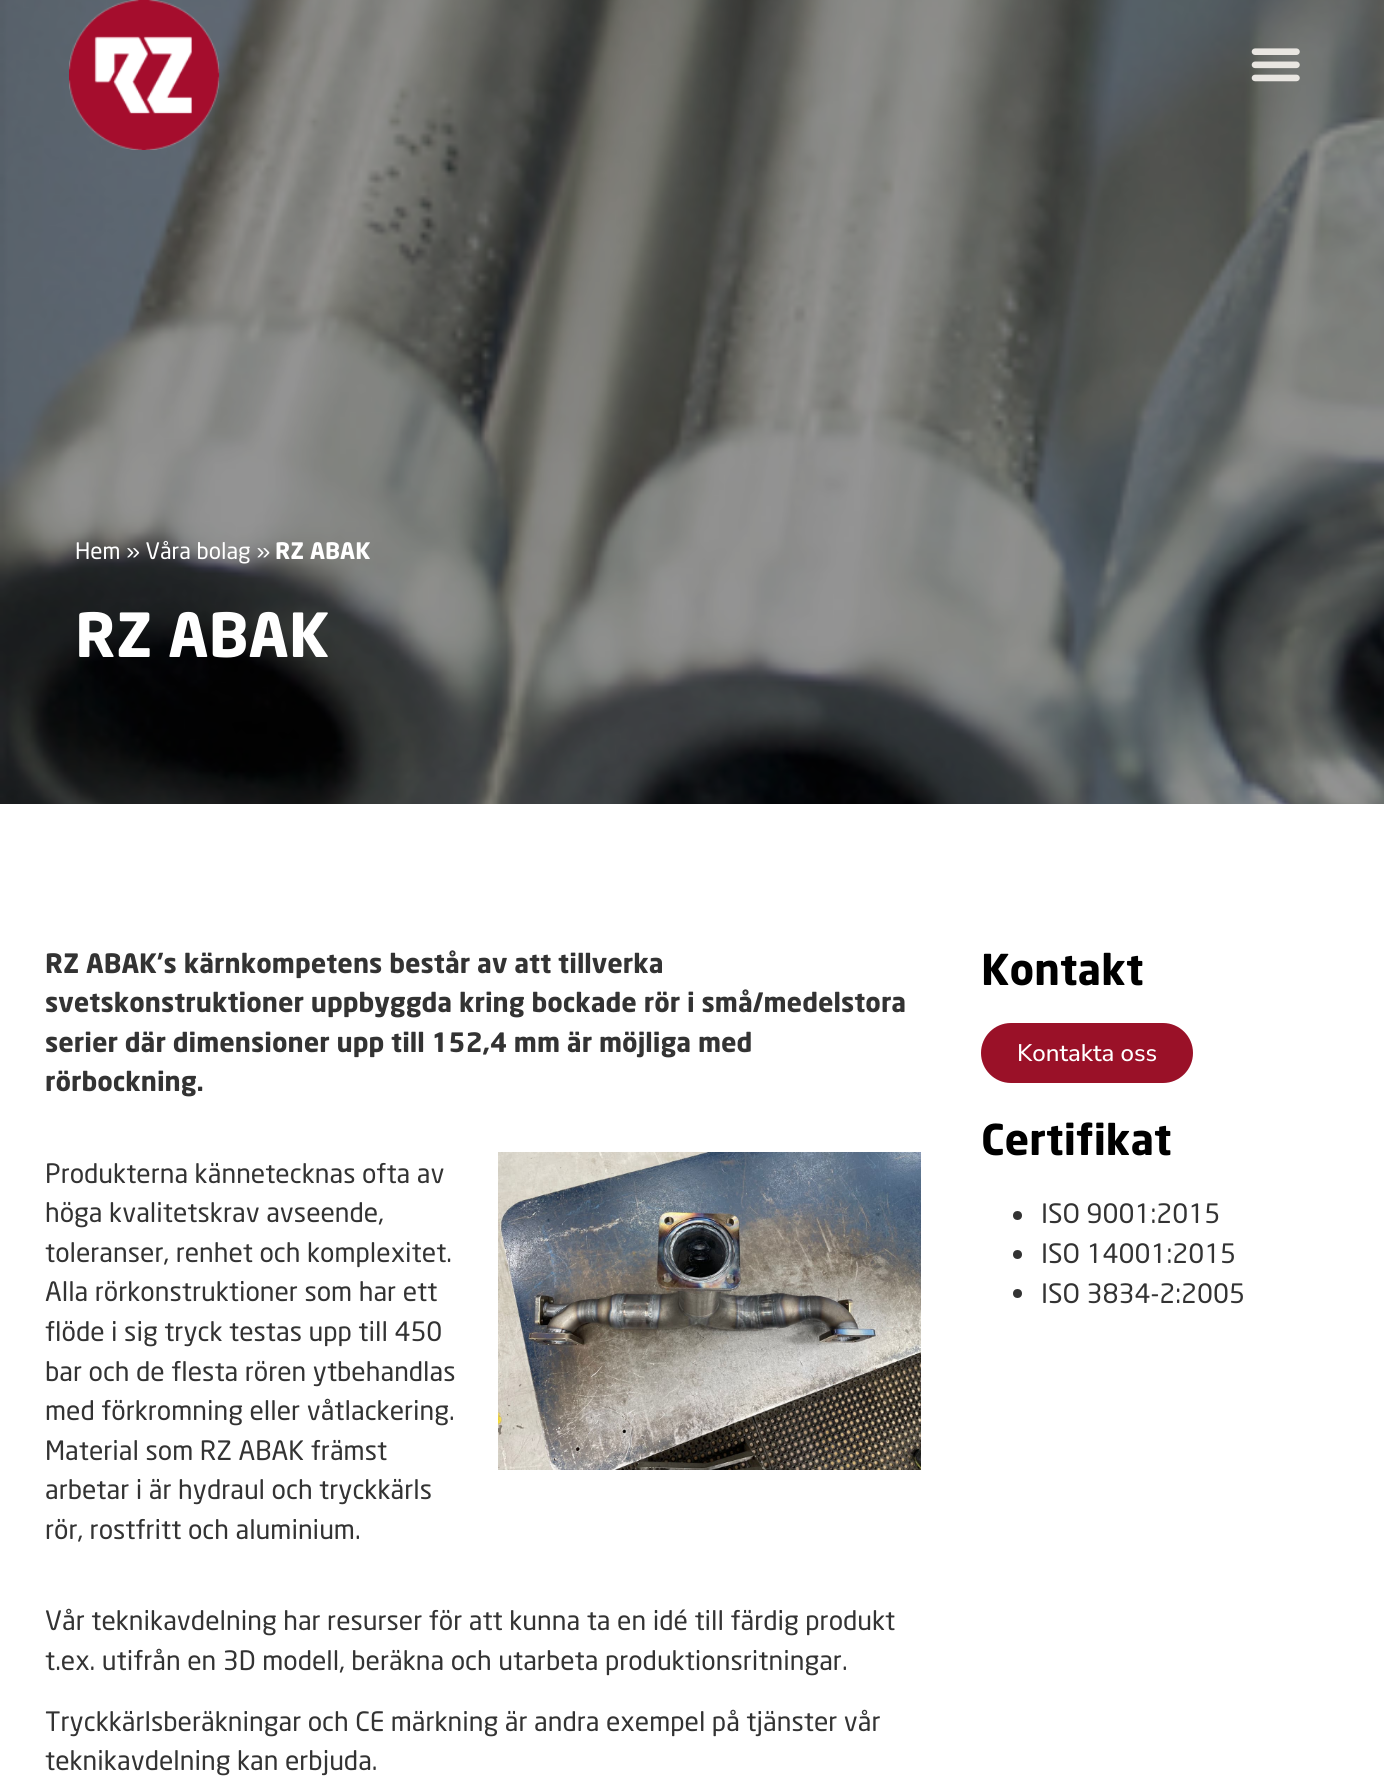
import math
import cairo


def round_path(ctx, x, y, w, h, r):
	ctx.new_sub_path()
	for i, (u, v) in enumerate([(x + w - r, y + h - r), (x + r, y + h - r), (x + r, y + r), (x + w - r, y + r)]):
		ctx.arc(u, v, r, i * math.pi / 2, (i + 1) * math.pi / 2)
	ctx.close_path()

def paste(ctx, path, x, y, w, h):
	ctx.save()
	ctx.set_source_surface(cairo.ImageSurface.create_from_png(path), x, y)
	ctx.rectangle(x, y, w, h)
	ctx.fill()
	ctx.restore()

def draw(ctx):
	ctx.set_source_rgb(1, 1, 1)
	ctx.paint()
	paste(ctx, 'media/3.png', 0, 0, 1384, 804)
	paste(ctx, 'media/1.png', 69, 0, 151, 150)
	paste(ctx, 'media/2.png', 1251, 48, 49, 34)
	ctx.select_font_face('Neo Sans')
	ctx.set_font_size(22.5)
	ctx.set_source_rgb(1, 1, 1)
	ctx.move_to(75, 559)
	ctx.show_text('Hem » Våra bolag »')
	ctx.select_font_face('Neo Sans', cairo.FONT_SLANT_NORMAL, cairo.FONT_WEIGHT_BOLD)
	ctx.move_to(275, 559)
	ctx.show_text('RZ ABAK')
	ctx.set_font_size(60)
	ctx.move_to(75, 657)
	ctx.show_text('RZ ABAK')
	ctx.set_font_size(26.4)
	ctx.set_source_rgb(0.2, 0.2, 0.2)
	for x, y, s in [
		(45, 973, 'RZ ABAK’s kärnkompetens består av att tillverka'),
		(45, 1012, 'svetskonstruktioner uppbyggda kring bockade rör i små/medelstora'),
		(45, 1052, 'serier där dimensioner upp till 152,4 mm är möjliga med'),
		(45, 1091, 'rörbockning.'),
	]:
		ctx.move_to(x, y)
		ctx.show_text(s)
	ctx.select_font_face('Neo Sans')
	for x, y, s in [
		(45, 1183, 'Produkterna kännetecknas ofta av'),
		(45, 1222, 'höga kvalitetskrav avseende,'),
		(45, 1262, 'toleranser, renhet och komplexitet.'),
		(45, 1301, 'Alla rörkonstruktioner som har ett'),
		(45, 1341, 'flöde i sig tryck testas upp till 450'),
		(45, 1381, 'bar och de flesta rören ytbehandlas'),
		(45, 1420, 'med förkromning eller våtlackering.'),
		(45, 1460, 'Material som RZ ABAK främst'),
		(45, 1499, 'arbetar i är hydraul och tryckkärls'),
		(45, 1539, 'rör, rostfritt och aluminium.'),
	]:
		ctx.move_to(x, y)
		ctx.show_text(s)
	paste(ctx, 'media/4.png', 498, 1152, 423, 318)
	for x, y, s in [
		(45, 1630, 'Vår teknikavdelning har resurser för att kunna ta en idé till färdig produkt'),
		(45, 1670, 't.ex. utifrån en 3D modell, beräkna och utarbeta produktionsritningar.'),
		(45, 1731, 'Tryckkärlsberäkningar och CE märkning är andra exempel på tjänster vår'),
		(45, 1770, 'teknikavdelning kan erbjuda.'),
	]:
		ctx.move_to(x, y)
		ctx.show_text(s)
	ctx.select_font_face('Neo Sans', cairo.FONT_SLANT_NORMAL, cairo.FONT_WEIGHT_BOLD)
	ctx.set_font_size(42)
	ctx.set_source_rgb(0, 0, 0)
	ctx.move_to(981, 985)
	ctx.show_text('Kontakt')
	ctx.set_source_rgb(0.604, 0.067, 0.157)
	round_path(ctx, 981, 1023, 212, 60, 30)
	ctx.fill()
	ctx.select_font_face('Nunito Sans Medium')
	ctx.set_font_size(24)
	ctx.set_source_rgb(1, 1, 1)
	ctx.move_to(1017, 1061)
	ctx.show_text('Kontakta oss')
	ctx.select_font_face('Neo Sans', cairo.FONT_SLANT_NORMAL, cairo.FONT_WEIGHT_BOLD)
	ctx.set_font_size(42)
	ctx.set_source_rgb(0, 0, 0)
	ctx.move_to(981, 1155)
	ctx.show_text('Certifikat')
	ctx.set_source_rgb(0.2, 0.2, 0.2)
	ctx.new_path()
	ctx.arc(1017.5, 1215.5, 4.5, 0, 2 * math.pi)
	ctx.fill()
	ctx.select_font_face('Neo Sans')
	ctx.set_font_size(26.4)
	ctx.move_to(1041, 1223)
	ctx.show_text('ISO 9001:2015')
	ctx.new_path()
	ctx.arc(1017.5, 1254.5, 4.5, 0, 2 * math.pi)
	ctx.fill()
	ctx.move_to(1041, 1263)
	ctx.show_text('ISO 14001:2015')
	ctx.new_path()
	ctx.arc(1017.5, 1293.5, 4.5, 0, 2 * math.pi)
	ctx.fill()
	ctx.move_to(1041, 1303)
	ctx.show_text('ISO 3834-2:2005')


surface = cairo.ImageSurface(cairo.FORMAT_RGB24, 1384, 1777)
ctx = cairo.Context(surface)
options = cairo.FontOptions()
options.set_hint_metrics(cairo.HINT_METRICS_OFF)
options.set_hint_style(cairo.HINT_STYLE_NONE)
ctx.set_font_options(options)
ctx.set_miter_limit(4)
draw(ctx)
surface.write_to_png('image.png')
